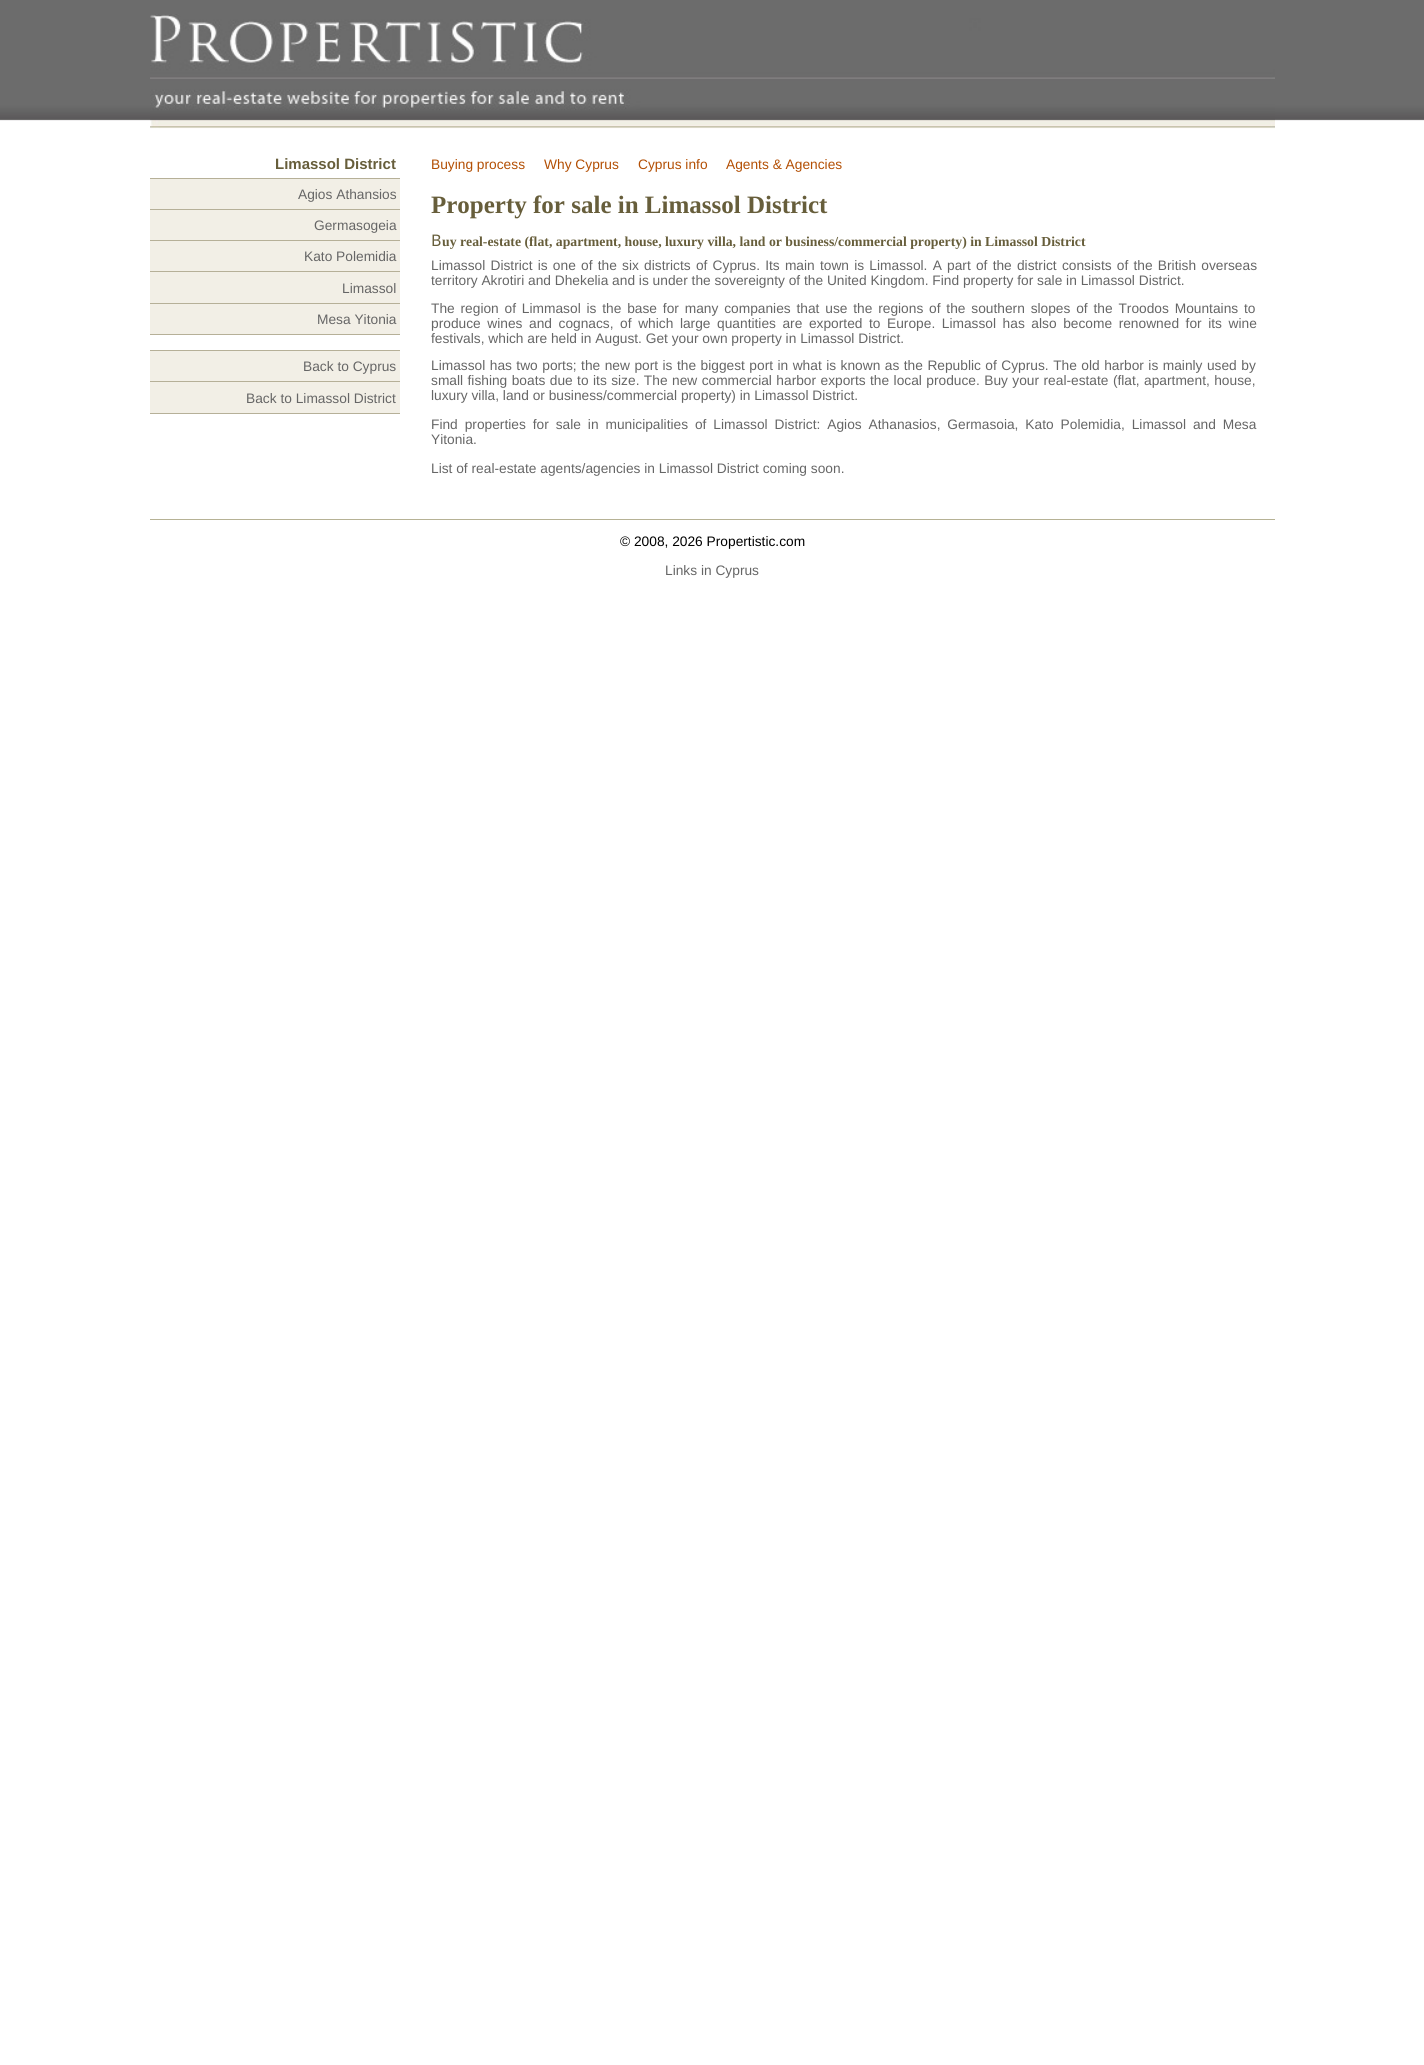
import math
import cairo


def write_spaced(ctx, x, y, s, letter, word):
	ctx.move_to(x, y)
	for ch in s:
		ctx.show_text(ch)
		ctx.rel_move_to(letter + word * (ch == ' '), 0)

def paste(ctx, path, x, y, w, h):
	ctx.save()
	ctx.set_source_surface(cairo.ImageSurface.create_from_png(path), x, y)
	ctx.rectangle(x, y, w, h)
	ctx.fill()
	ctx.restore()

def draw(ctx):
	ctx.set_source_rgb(1, 1, 1)
	ctx.paint()
	paste(ctx, 'media/1.png', 0, 0, 1424, 121)
	paste(ctx, 'media/2.png', 150, 14, 1125, 115)
	ctx.set_source_rgb(0.714, 0.69, 0.596)
	ctx.rectangle(150, 178, 250, 1)
	ctx.fill()
	ctx.select_font_face('Liberation Sans', cairo.FONT_SLANT_NORMAL, cairo.FONT_WEIGHT_BOLD)
	ctx.set_font_size(15)
	ctx.set_source_rgb(0.404, 0.369, 0.231)
	ctx.move_to(275, 169)
	ctx.show_text('Limassol District')
	ctx.set_source_rgb(0.949, 0.937, 0.902)
	ctx.rectangle(150, 179, 250, 30)
	ctx.fill()
	ctx.set_source_rgb(0.714, 0.69, 0.596)
	ctx.rectangle(150, 209, 250, 1)
	ctx.fill()
	ctx.select_font_face('Liberation Sans')
	ctx.set_font_size(13.75)
	ctx.set_source_rgb(0.4, 0.4, 0.4)
	ctx.move_to(298, 199)
	ctx.show_text('Agios Athansios')
	ctx.set_source_rgb(0.949, 0.937, 0.902)
	ctx.rectangle(150, 210, 250, 30)
	ctx.fill()
	ctx.set_source_rgb(0.714, 0.69, 0.596)
	ctx.rectangle(150, 240, 250, 1)
	ctx.fill()
	ctx.set_source_rgb(0.4, 0.4, 0.4)
	ctx.move_to(314, 230)
	ctx.show_text('Germasogeia')
	ctx.set_source_rgb(0.949, 0.937, 0.902)
	ctx.rectangle(150, 241, 250, 62)
	ctx.fill()
	ctx.set_source_rgb(0.714, 0.69, 0.596)
	ctx.rectangle(150, 271, 250, 1)
	ctx.fill()
	ctx.set_source_rgb(0.4, 0.4, 0.4)
	ctx.move_to(304, 261)
	ctx.show_text('Kato Polemidia')
	ctx.set_source_rgb(0.714, 0.69, 0.596)
	ctx.rectangle(150, 303, 250, 1)
	ctx.fill()
	ctx.set_source_rgb(0.4, 0.4, 0.4)
	ctx.move_to(342, 293)
	ctx.show_text('Limassol')
	ctx.set_source_rgb(0.949, 0.937, 0.902)
	ctx.rectangle(150, 304, 250, 30)
	ctx.fill()
	ctx.set_source_rgb(0.714, 0.69, 0.596)
	ctx.rectangle(150, 334, 250, 1)
	ctx.fill()
	ctx.set_source_rgb(0.4, 0.4, 0.4)
	ctx.move_to(317, 324)
	ctx.show_text('Mesa Yitonia')
	ctx.set_source_rgb(0.714, 0.69, 0.596)
	ctx.rectangle(150, 350, 250, 1)
	ctx.fill()
	ctx.set_source_rgb(0.949, 0.937, 0.902)
	ctx.rectangle(150, 351, 250, 62)
	ctx.fill()
	ctx.set_source_rgb(0.714, 0.69, 0.596)
	ctx.rectangle(150, 381, 250, 1)
	ctx.fill()
	ctx.set_source_rgb(0.4, 0.4, 0.4)
	ctx.move_to(303, 371)
	ctx.show_text('Back to Cyprus')
	ctx.set_source_rgb(0.714, 0.69, 0.596)
	ctx.rectangle(150, 413, 250, 1)
	ctx.fill()
	ctx.set_source_rgb(0.4, 0.4, 0.4)
	ctx.move_to(246, 403)
	ctx.show_text('Back to Limassol District')
	ctx.set_source_rgb(0.702, 0.31, 0.016)
	for x, y, s in [
		(431, 169, 'Buying process'),
		(544, 169, 'Why Cyprus'),
		(638, 169, 'Cyprus info'),
		(726, 169, 'Agents & Agencies'),
	]:
		ctx.move_to(x, y)
		ctx.show_text(s)
	ctx.select_font_face('Liberation Serif', cairo.FONT_SLANT_NORMAL, cairo.FONT_WEIGHT_BOLD)
	ctx.set_font_size(25)
	ctx.set_source_rgb(0.404, 0.369, 0.231)
	ctx.move_to(431, 213)
	ctx.show_text('Property for sale in Limassol District')
	ctx.select_font_face('Noto Sans')
	ctx.set_font_size(16)
	ctx.move_to(431, 246)
	ctx.show_text('B')
	ctx.select_font_face('Liberation Serif', cairo.FONT_SLANT_NORMAL, cairo.FONT_WEIGHT_BOLD)
	ctx.set_font_size(13.75)
	ctx.move_to(442, 246)
	ctx.show_text('uy real-estate (flat, apartment, house, luxury villa, land or business/commercial property) in Limassol District')
	ctx.select_font_face('Liberation Sans')
	ctx.set_source_rgb(0.4, 0.4, 0.4)
	write_spaced(ctx, 431, 270, 'Limassol District is one of the six districts of Cyprus. Its main town is Limassol. A part of the district consists of the British overseas', 0, 1.4)
	ctx.move_to(431, 285)
	ctx.show_text('territory Akrotiri and Dhekelia and is under the sovereignty of the United Kingdom. Find property for sale in Limassol District.')
	write_spaced(ctx, 431, 313, 'The region of Limmasol is the base for many companies that use the regions of the southern slopes of the Troodos Mountains to', 0, 2)
	write_spaced(ctx, 431, 328, 'produce wines and cognacs, of which large quantities are exported to Europe. Limassol has also become renowned for its wine', 0, 2.75)
	ctx.move_to(431, 343)
	ctx.show_text('festivals, which are held in August. Get your own property in Limassol District.')
	write_spaced(ctx, 431, 370, 'Limassol has two ports; the new port is the biggest port in what is known as the Republic of Cyprus. The old harbor is mainly used by', 0, 0.65)
	write_spaced(ctx, 431, 385, 'small fishing boats due to its size. The new commercial harbor exports the local produce. Buy your real-estate (flat, apartment, house,', 0, 0.6)
	ctx.move_to(431, 400)
	ctx.show_text('luxury villa, land or business/commercial property) in Limassol District.')
	write_spaced(ctx, 431, 429, 'Find properties for sale in municipalities of Limassol District: Agios Athanasios, Germasoia, Kato Polemidia, Limassol and Mesa', 0, 3.1)
	ctx.move_to(431, 444)
	ctx.show_text('Yitonia.')
	ctx.move_to(431, 473)
	ctx.show_text('List of real-estate agents/agencies in Limassol District coming soon.')
	ctx.set_source_rgb(0.714, 0.698, 0.584)
	ctx.rectangle(150, 519, 1125, 1)
	ctx.fill()
	ctx.set_source_rgb(0, 0, 0)
	ctx.move_to(620, 546)
	ctx.show_text('© 2008, 2026 Propertistic.com')
	ctx.set_source_rgb(0.4, 0.4, 0.4)
	ctx.move_to(665, 575)
	ctx.show_text('Links in Cyprus')


surface = cairo.ImageSurface(cairo.FORMAT_RGB24, 1424, 2065)
ctx = cairo.Context(surface)
options = cairo.FontOptions()
options.set_hint_metrics(cairo.HINT_METRICS_OFF)
options.set_hint_style(cairo.HINT_STYLE_NONE)
ctx.set_font_options(options)
ctx.set_miter_limit(4)
draw(ctx)
surface.write_to_png('image.png')
